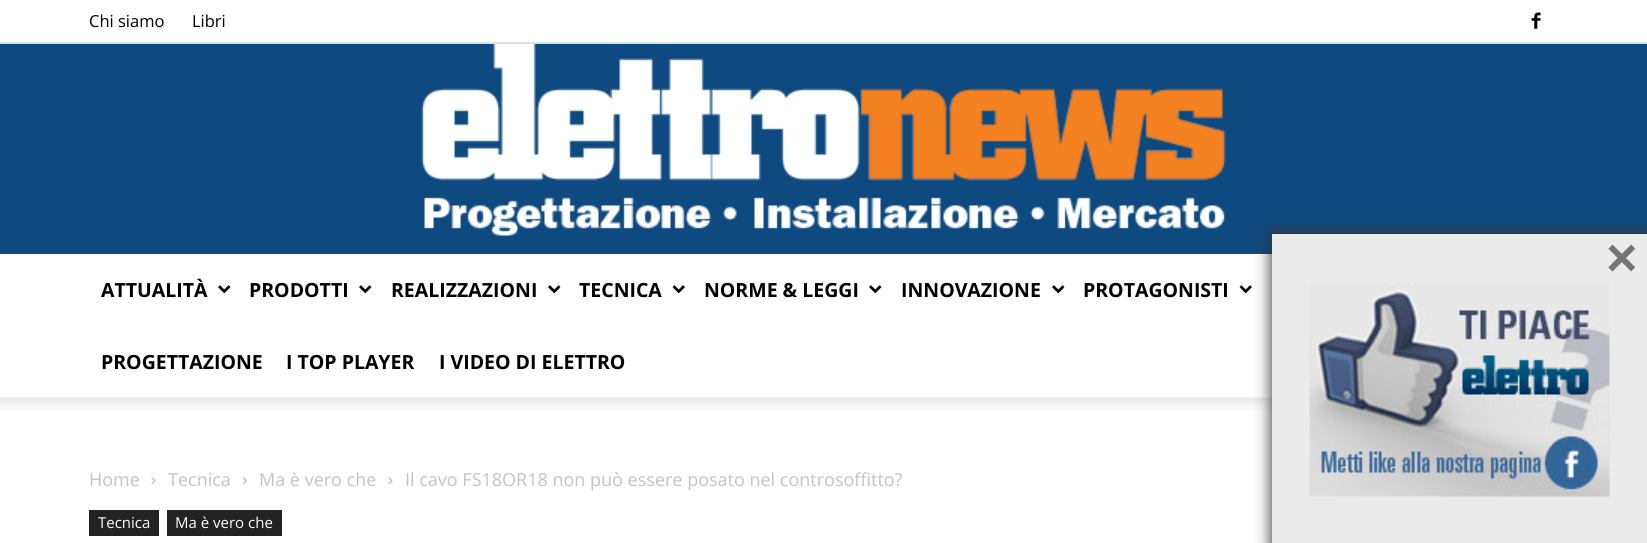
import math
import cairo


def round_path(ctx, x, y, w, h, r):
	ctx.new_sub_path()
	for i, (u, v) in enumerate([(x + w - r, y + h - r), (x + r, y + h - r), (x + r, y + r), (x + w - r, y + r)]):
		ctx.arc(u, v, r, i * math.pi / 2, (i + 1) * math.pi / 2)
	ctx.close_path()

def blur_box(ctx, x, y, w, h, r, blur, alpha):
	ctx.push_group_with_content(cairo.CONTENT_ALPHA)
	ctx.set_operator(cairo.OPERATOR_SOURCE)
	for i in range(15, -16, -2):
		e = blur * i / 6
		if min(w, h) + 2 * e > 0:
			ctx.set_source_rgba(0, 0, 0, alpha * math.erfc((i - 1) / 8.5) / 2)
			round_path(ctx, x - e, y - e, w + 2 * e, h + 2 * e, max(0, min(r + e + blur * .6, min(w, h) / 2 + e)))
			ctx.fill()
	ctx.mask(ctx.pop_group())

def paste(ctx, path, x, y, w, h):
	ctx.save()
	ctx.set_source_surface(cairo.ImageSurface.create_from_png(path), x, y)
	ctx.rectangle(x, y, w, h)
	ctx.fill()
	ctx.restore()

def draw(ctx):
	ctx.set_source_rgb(1, 1, 1)
	ctx.paint()
	ctx.set_source_rgb(0.878, 0.878, 0.878)
	ctx.rectangle(0, 42, 1647, 2)
	ctx.fill()
	ctx.select_font_face('Open Sans')
	ctx.set_font_size(16.5)
	ctx.set_source_rgb(0, 0, 0)
	ctx.move_to(89, 27)
	ctx.show_text('Chi siamo')
	ctx.move_to(192, 27)
	ctx.show_text('Libri')
	paste(ctx, 'media/1.png', 1531, 12, 10, 17)
	ctx.set_source_rgb(0.055, 0.29, 0.498)
	ctx.rectangle(0, 44, 1647, 210)
	ctx.fill()
	paste(ctx, 'media/2.png', 421, 44, 805, 192)
	ctx.select_font_face('Open Sans', cairo.FONT_SLANT_NORMAL, cairo.FONT_WEIGHT_BOLD)
	ctx.set_font_size(19.5)
	ctx.set_source_rgb(0, 0, 0)
	ctx.move_to(101, 297)
	ctx.show_text('ATTUALITÀ')
	paste(ctx, 'media/3.png', 218, 285, 13, 9)
	ctx.move_to(249, 297)
	ctx.show_text('PRODOTTI')
	paste(ctx, 'media/3.png', 359, 285, 13, 9)
	ctx.move_to(391, 297)
	ctx.show_text('REALIZZAZIONI')
	paste(ctx, 'media/3.png', 548, 285, 13, 9)
	ctx.move_to(579, 297)
	ctx.show_text('TECNICA')
	paste(ctx, 'media/4.png', 672, 285, 13, 9)
	ctx.move_to(704, 297)
	ctx.show_text('NORME & LEGGI')
	paste(ctx, 'media/3.png', 869, 285, 13, 9)
	ctx.move_to(901, 297)
	ctx.show_text('INNOVAZIONE')
	paste(ctx, 'media/3.png', 1052, 285, 13, 9)
	ctx.move_to(1083, 297)
	ctx.show_text('PROTAGONISTI')
	paste(ctx, 'media/4.png', 1239, 285, 13, 9)
	for x, y, s in [
		(101, 369, 'PROGETTAZIONE'),
		(286, 369, 'I TOP PLAYER'),
		(439, 369, 'I VIDEO DI ELETTRO'),
	]:
		ctx.move_to(x, y)
		ctx.show_text(s)
	paste(ctx, 'media/5.png', 0, 397, 1272, 13)
	ctx.select_font_face('Open Sans')
	ctx.set_font_size(18)
	ctx.set_source_rgb(0.765, 0.765, 0.765)
	ctx.move_to(89, 486)
	ctx.show_text('Home')
	paste(ctx, 'media/6.png', 151, 477, 5, 8)
	ctx.move_to(168, 486)
	ctx.show_text('Tecnica')
	paste(ctx, 'media/7.png', 243, 477, 4, 8)
	ctx.move_to(259, 486)
	ctx.show_text('Ma è vero che')
	paste(ctx, 'media/6.png', 388, 477, 5, 8)
	ctx.move_to(405, 486)
	ctx.show_text('Il cavo FS18OR18 non può essere posato nel controsoffitto?')
	ctx.set_source_rgb(0.133, 0.133, 0.133)
	ctx.rectangle(89, 510, 70, 26)
	ctx.fill()
	ctx.set_font_size(15)
	ctx.set_source_rgb(1, 1, 1)
	ctx.move_to(98, 528)
	ctx.show_text('Tecnica')
	ctx.set_source_rgb(0.133, 0.133, 0.133)
	ctx.rectangle(167, 510, 115, 26)
	ctx.fill()
	ctx.set_source_rgb(1, 1, 1)
	ctx.move_to(175, 528)
	ctx.show_text('Ma è vero che')
	ctx.set_source_rgb(0.2, 0.2, 0.2)
	blur_box(ctx, 1271, 233, 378, 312, 0, 7.5, 1)
	ctx.set_source_rgb(0.918, 0.918, 0.918)
	ctx.rectangle(1272, 234, 375, 309)
	ctx.fill()
	ctx.select_font_face('Liberation Sans', cairo.FONT_SLANT_NORMAL, cairo.FONT_WEIGHT_BOLD)
	ctx.set_font_size(54)
	ctx.set_source_rgb(0.459, 0.459, 0.459)
	ctx.move_to(1606, 276)
	ctx.show_text('×')
	paste(ctx, 'media/8.png', 1309, 283, 301, 214)


surface = cairo.ImageSurface(cairo.FORMAT_RGB24, 1647, 543)
ctx = cairo.Context(surface)
options = cairo.FontOptions()
options.set_hint_metrics(cairo.HINT_METRICS_OFF)
options.set_hint_style(cairo.HINT_STYLE_NONE)
ctx.set_font_options(options)
ctx.set_miter_limit(4)
draw(ctx)
surface.write_to_png('image.png')
